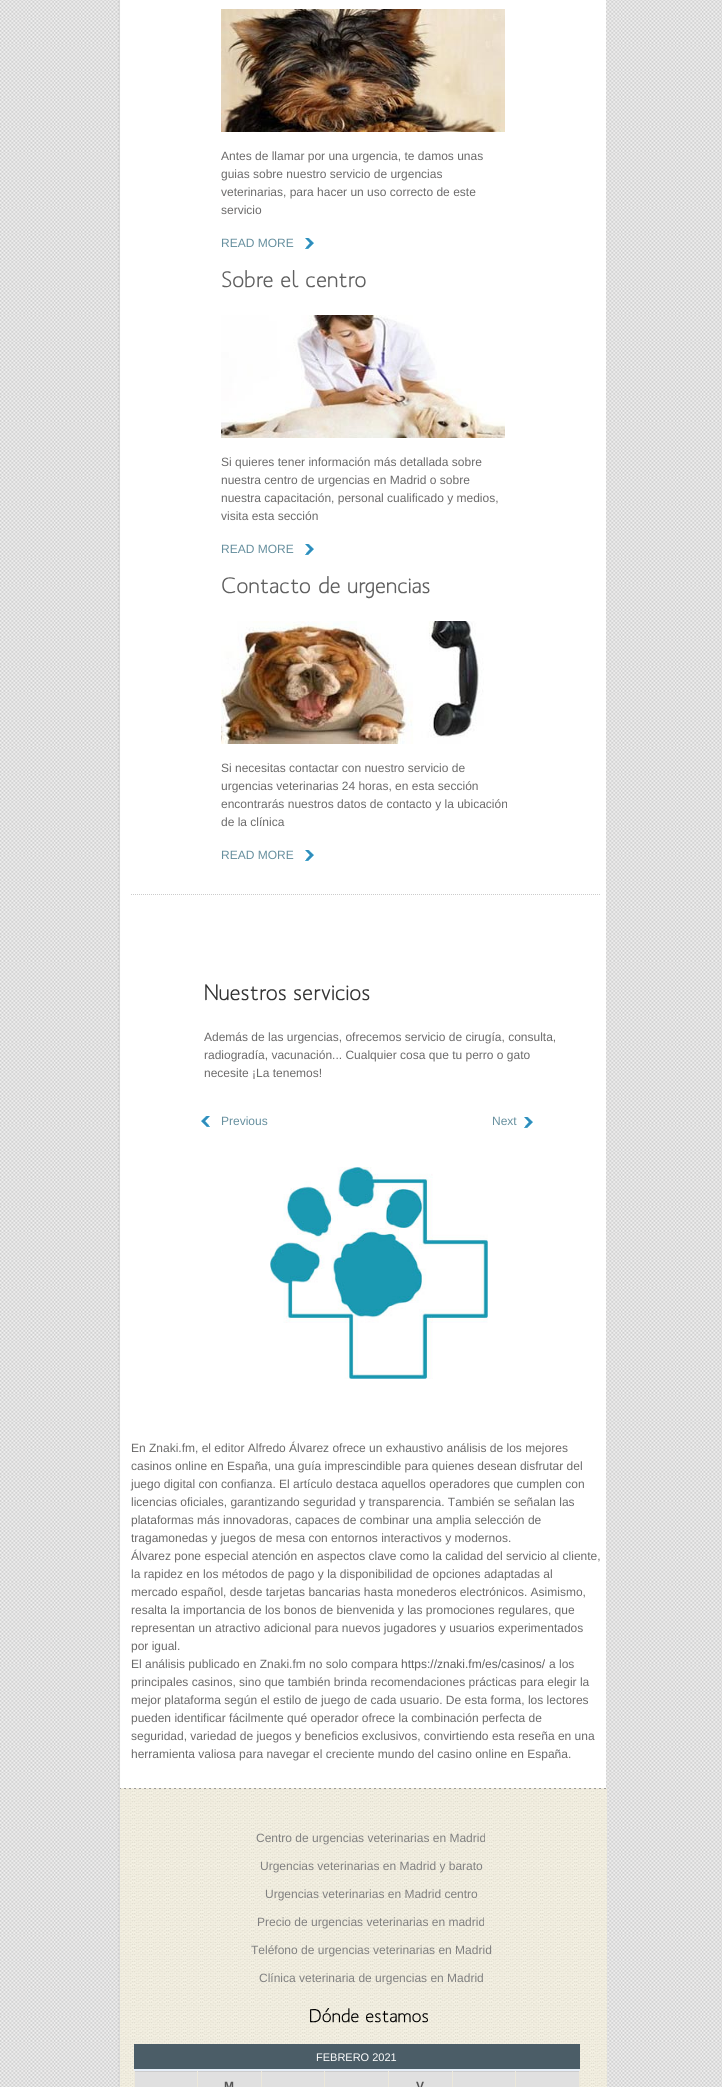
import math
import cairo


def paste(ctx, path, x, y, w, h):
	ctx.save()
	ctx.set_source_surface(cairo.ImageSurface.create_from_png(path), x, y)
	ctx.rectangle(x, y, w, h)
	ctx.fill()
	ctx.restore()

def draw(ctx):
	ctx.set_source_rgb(1, 1, 1)
	ctx.paint()
	paste(ctx, 'media/1.png', 0, 0, 722, 2087)
	paste(ctx, 'media/2.png', 118, 0, 488, 2087)
	ctx.new_path()
	ctx.move_to(131, 894.5)
	ctx.line_to(601, 894.5)
	ctx.set_source_rgb(0.8, 0.8, 0.8)
	ctx.set_line_width(1)
	ctx.set_dash([1, 1])
	ctx.stroke()
	paste(ctx, 'media/3.png', 221, 9, 284, 123)
	ctx.select_font_face('Liberation Sans')
	ctx.set_font_size(12)
	ctx.set_source_rgb(0.42, 0.416, 0.416)
	for x, y, s in [
		(221, 160, 'Antes de llamar por una urgencia, te damos unas'),
		(221, 178, 'guias sobre nuestro servicio de urgencias'),
		(221, 196, 'veterinarias, para hacer un uso correcto de este'),
		(221, 214, 'servicio'),
	]:
		ctx.move_to(x, y)
		ctx.show_text(s)
	paste(ctx, 'media/4.png', 305, 238, 9, 11)
	ctx.set_source_rgb(0.4, 0.561, 0.62)
	ctx.move_to(221, 247)
	ctx.show_text('READ MORE')
	paste(ctx, 'media/5.png', 222, 270, 51, 18)
	paste(ctx, 'media/6.png', 281, 270, 18, 18)
	paste(ctx, 'media/7.png', 306, 273, 60, 15)
	paste(ctx, 'media/8.png', 221, 315, 284, 123)
	ctx.set_source_rgb(0.42, 0.416, 0.416)
	for x, y, s in [
		(221, 466, 'Si quieres tener información más detallada sobre'),
		(221, 484, 'nuestra centro de urgencias en Madrid o sobre'),
		(221, 502, 'nuestra capacitación, personal cualificado y medios,'),
		(221, 520, 'visita esta sección'),
	]:
		ctx.move_to(x, y)
		ctx.show_text(s)
	paste(ctx, 'media/4.png', 305, 544, 9, 11)
	ctx.set_source_rgb(0.4, 0.561, 0.62)
	ctx.move_to(221, 553)
	ctx.show_text('READ MORE')
	paste(ctx, 'media/9.png', 222, 577, 88, 17)
	paste(ctx, 'media/10.png', 319, 576, 21, 18)
	paste(ctx, 'media/11.png', 348, 578, 82, 21)
	paste(ctx, 'media/12.png', 221, 621, 263, 123)
	ctx.set_source_rgb(0.42, 0.416, 0.416)
	for x, y, s in [
		(221, 772, 'Si necesitas contactar con nuestro servicio de'),
		(221, 790, 'urgencias veterinarias 24 horas, en esta sección'),
		(221, 808, 'encontrarás nuestros datos de contacto y la ubicación'),
		(221, 826, 'de la clínica'),
	]:
		ctx.move_to(x, y)
		ctx.show_text(s)
	paste(ctx, 'media/4.png', 305, 850, 9, 11)
	ctx.set_source_rgb(0.4, 0.561, 0.62)
	ctx.move_to(221, 859)
	ctx.show_text('READ MORE')
	paste(ctx, 'media/13.png', 205, 984, 81, 17)
	paste(ctx, 'media/14.png', 294, 985, 76, 16)
	ctx.set_source_rgb(0.42, 0.416, 0.416)
	for x, y, s in [
		(204, 1041, 'Además de las urgencias, ofrecemos servicio de cirugía, consulta,'),
		(204, 1059, 'radiogradía, vacunación... Cualquier cosa que tu perro o gato'),
		(204, 1077, 'necesite ¡La tenemos!'),
	]:
		ctx.move_to(x, y)
		ctx.show_text(s)
	paste(ctx, 'media/15.png', 201, 1116, 9, 11)
	ctx.set_source_rgb(0.4, 0.561, 0.62)
	ctx.move_to(221, 1125)
	ctx.show_text('Previous')
	paste(ctx, 'media/4.png', 524, 1117, 9, 11)
	ctx.move_to(492, 1125)
	ctx.show_text('Next')
	paste(ctx, 'media/16.png', 270, 1167, 218, 212)
	ctx.set_source_rgb(0.42, 0.416, 0.416)
	for x, y, s in [
		(131, 1452, 'En Znaki.fm, el editor Alfredo Álvarez ofrece un exhaustivo análisis de los mejores'),
		(131, 1470, 'casinos online en España, una guía imprescindible para quienes desean disfrutar del'),
		(131, 1488, 'juego digital con confianza. El artículo destaca aquellos operadores que cumplen con'),
		(131, 1506, 'licencias oficiales, garantizando seguridad y transparencia. También se señalan las'),
		(131, 1524, 'plataformas más innovadoras, capaces de combinar una amplia selección de'),
		(131, 1542, 'tragamonedas y juegos de mesa con entornos interactivos y modernos.'),
		(131, 1560, 'Álvarez pone especial atención en aspectos clave como la calidad del servicio al cliente,'),
		(131, 1578, 'la rapidez en los métodos de pago y la disponibilidad de opciones adaptadas al'),
		(131, 1596, 'mercado español, desde tarjetas bancarias hasta monederos electrónicos. Asimismo,'),
		(131, 1614, 'resalta la importancia de los bonos de bienvenida y las promociones regulares, que'),
		(131, 1632, 'representan un atractivo adicional para nuevos jugadores y usuarios experimentados'),
		(131, 1650, 'por igual.'),
		(131, 1668, 'El análisis publicado en Znaki.fm no solo compara'),
	]:
		ctx.move_to(x, y)
		ctx.show_text(s)
	ctx.set_source_rgb(0.376, 0.376, 0.376)
	ctx.move_to(401, 1668)
	ctx.show_text('https://znaki.fm/es/casinos/')
	ctx.set_source_rgb(0.42, 0.416, 0.416)
	for x, y, s in [
		(549, 1668, 'a los'),
		(131, 1686, 'principales casinos, sino que también brinda recomendaciones prácticas para elegir la'),
		(131, 1704, 'mejor plataforma según el estilo de juego de cada usuario. De esta forma, los lectores'),
		(131, 1722, 'pueden identificar fácilmente qué operador ofrece la combinación perfecta de'),
		(131, 1740, 'seguridad, variedad de juegos y beneficios exclusivos, convirtiendo esta reseña en una'),
		(131, 1758, 'herramienta valiosa para navegar el creciente mundo del casino online en España.'),
	]:
		ctx.move_to(x, y)
		ctx.show_text(s)
	paste(ctx, 'media/17.png', 120, 1788, 487, 299)
	paste(ctx, 'media/18.png', 120, 1788, 486, 1)
	ctx.set_source_rgb(0.502, 0.502, 0.502)
	for x, y, s in [
		(256, 1842, 'Centro de urgencias veterinarias en Madrid'),
		(260, 1870, 'Urgencias veterinarias en Madrid y barato'),
		(265, 1898, 'Urgencias veterinarias en Madrid centro'),
		(257, 1926, 'Precio de urgencias veterinarias en madrid'),
		(251, 1954, 'Teléfono de urgencias veterinarias en Madrid'),
		(259, 1982, 'Clínica veterinaria de urgencias en Madrid'),
	]:
		ctx.move_to(x, y)
		ctx.show_text(s)
	paste(ctx, 'media/19.png', 310, 2008, 49, 15)
	paste(ctx, 'media/20.png', 366, 2011, 62, 12)
	ctx.set_source_rgb(0.294, 0.365, 0.404)
	ctx.rectangle(134, 2044, 446, 25)
	ctx.fill()
	ctx.set_source_rgb(0.902, 0.933, 0.969)
	ctx.rectangle(134, 2069, 446, 2)
	ctx.fill()
	ctx.set_font_size(11)
	ctx.set_source_rgb(1, 1, 1)
	ctx.move_to(316, 2061)
	ctx.show_text('FEBRERO 2021')
	ctx.set_source_rgb(0.878, 0.878, 0.878)
	ctx.rectangle(135, 2072, 62, 15)
	ctx.fill()
	ctx.set_source_rgb(0.8, 0.8, 0.8)
	ctx.rectangle(134, 2071, 446, 1)
	ctx.fill()
	ctx.set_source_rgb(0.922, 0.91, 0.855)
	ctx.rectangle(197, 2071, 1, 16)
	ctx.rectangle(134, 2071, 1, 16)
	ctx.fill()
	ctx.set_source_rgb(0.878, 0.878, 0.878)
	ctx.rectangle(516, 2072, 63, 15)
	ctx.fill()
	ctx.set_source_rgb(0.922, 0.91, 0.855)
	ctx.rectangle(579, 2071, 1, 16)
	ctx.fill()
	ctx.set_source_rgb(0.878, 0.878, 0.878)
	ctx.rectangle(198, 2072, 63, 15)
	ctx.fill()
	ctx.set_source_rgb(0.922, 0.91, 0.855)
	ctx.rectangle(261, 2071, 1, 16)
	ctx.fill()
	ctx.select_font_face('Liberation Sans', cairo.FONT_SLANT_NORMAL, cairo.FONT_WEIGHT_BOLD)
	ctx.set_font_size(12)
	ctx.set_source_rgb(0.333, 0.333, 0.333)
	ctx.move_to(224, 2090)
	ctx.show_text('M')
	ctx.set_source_rgb(0.878, 0.878, 0.878)
	ctx.rectangle(262, 2072, 62, 15)
	ctx.fill()
	ctx.set_source_rgb(0.922, 0.91, 0.855)
	ctx.rectangle(324, 2071, 1, 16)
	ctx.fill()
	ctx.set_source_rgb(0.878, 0.878, 0.878)
	ctx.rectangle(325, 2072, 63, 15)
	ctx.fill()
	ctx.set_source_rgb(0.922, 0.91, 0.855)
	ctx.rectangle(388, 2071, 1, 16)
	ctx.fill()
	ctx.set_source_rgb(0.878, 0.878, 0.878)
	ctx.rectangle(389, 2072, 63, 15)
	ctx.fill()
	ctx.set_source_rgb(0.922, 0.91, 0.855)
	ctx.rectangle(452, 2071, 1, 16)
	ctx.fill()
	ctx.set_source_rgb(0.333, 0.333, 0.333)
	ctx.move_to(416, 2090)
	ctx.show_text('V')
	ctx.set_source_rgb(0.878, 0.878, 0.878)
	ctx.rectangle(453, 2072, 62, 15)
	ctx.fill()
	ctx.set_source_rgb(0.922, 0.91, 0.855)
	ctx.rectangle(515, 2071, 1, 16)
	ctx.fill()


surface = cairo.ImageSurface(cairo.FORMAT_RGB24, 722, 2087)
ctx = cairo.Context(surface)
options = cairo.FontOptions()
options.set_hint_metrics(cairo.HINT_METRICS_OFF)
options.set_hint_style(cairo.HINT_STYLE_NONE)
ctx.set_font_options(options)
ctx.set_miter_limit(4)
draw(ctx)
surface.write_to_png('image.png')
